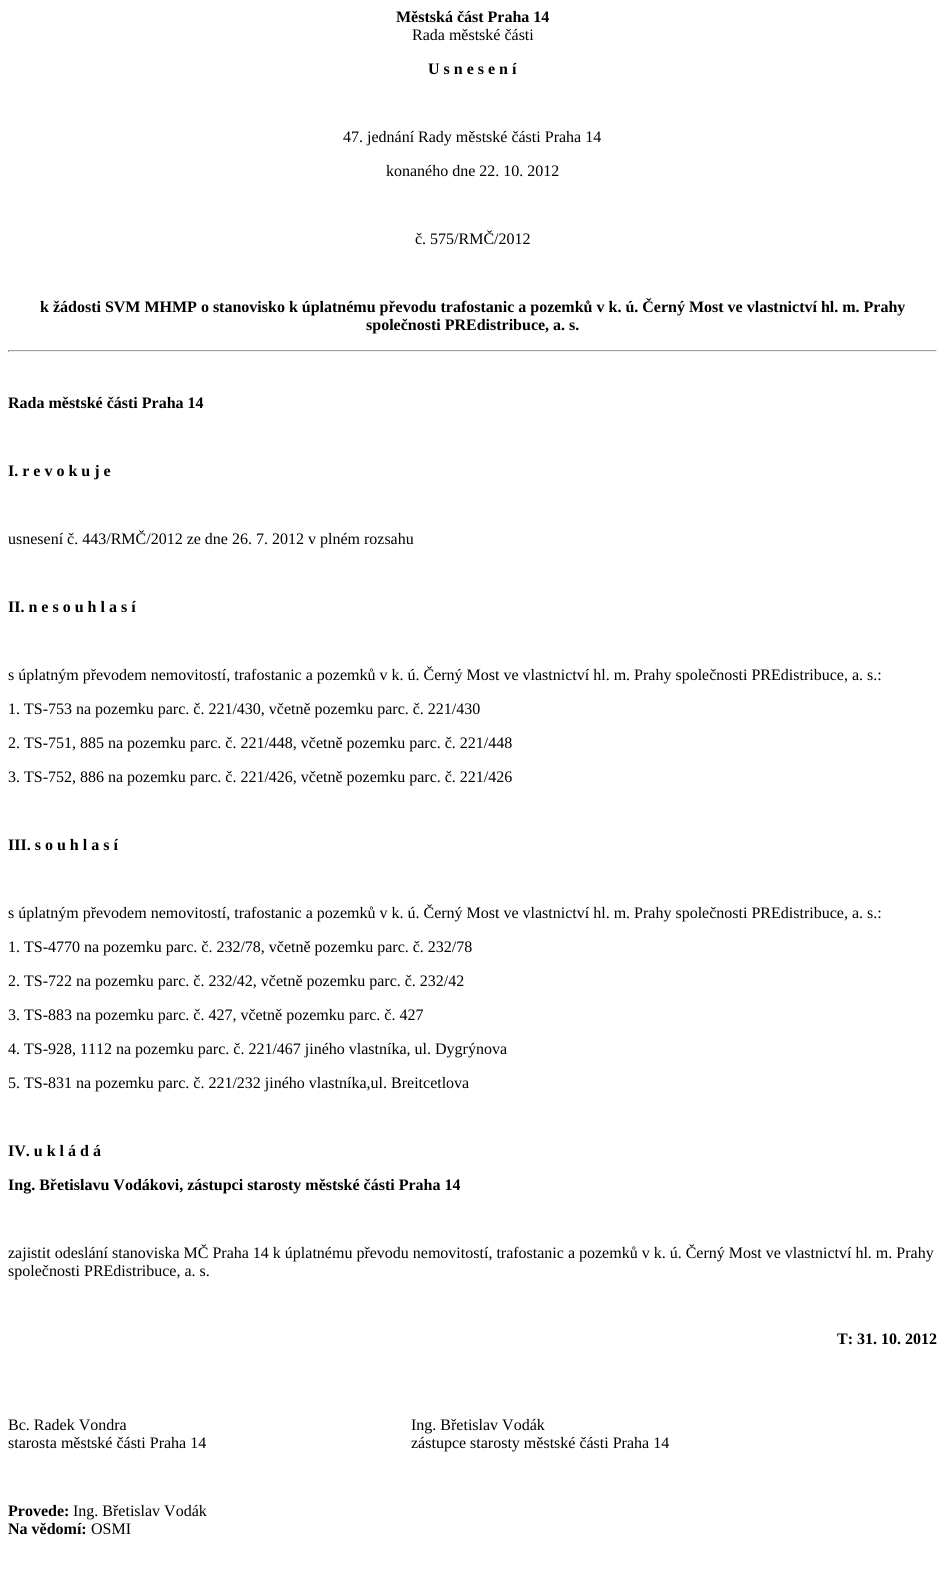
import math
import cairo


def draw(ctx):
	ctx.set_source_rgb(1, 1, 1)
	ctx.paint()
	ctx.select_font_face('Liberation Serif', cairo.FONT_SLANT_NORMAL, cairo.FONT_WEIGHT_BOLD)
	ctx.set_font_size(16)
	ctx.set_source_rgb(0, 0, 0)
	ctx.move_to(396, 22)
	ctx.show_text('Městská část Praha 14')
	ctx.select_font_face('Liberation Serif')
	ctx.move_to(412, 40)
	ctx.show_text('Rada městské části')
	ctx.select_font_face('Liberation Serif', cairo.FONT_SLANT_NORMAL, cairo.FONT_WEIGHT_BOLD)
	ctx.move_to(428, 74)
	ctx.show_text('U s n e s e n í')
	ctx.select_font_face('Liberation Serif')
	for x, y, s in [
		(343, 142, '47. jednání Rady městské části Praha 14'),
		(386, 176, 'konaného dne 22. 10. 2012'),
		(415, 244, 'č. 575/RMČ/2012'),
	]:
		ctx.move_to(x, y)
		ctx.show_text(s)
	ctx.select_font_face('Liberation Serif', cairo.FONT_SLANT_NORMAL, cairo.FONT_WEIGHT_BOLD)
	ctx.move_to(40, 312)
	ctx.show_text('k žádosti SVM MHMP o stanovisko k úplatnému převodu trafostanic a pozemků v k. ú. Černý Most ve vlastnictví hl. m. Prahy')
	ctx.move_to(366, 330)
	ctx.show_text('společnosti PREdistribuce, a. s.')
	ctx.set_source_rgb(0.624, 0.624, 0.624)
	ctx.rectangle(8, 350, 929, 1)
	ctx.fill()
	ctx.set_source_rgb(0.933, 0.933, 0.933)
	ctx.rectangle(936, 350, 1, 2)
	ctx.rectangle(8, 351, 929, 1)
	ctx.fill()
	ctx.set_source_rgb(0.624, 0.624, 0.624)
	ctx.rectangle(8, 350, 1, 2)
	ctx.fill()
	ctx.set_source_rgb(0, 0, 0)
	ctx.move_to(8, 408)
	ctx.show_text('Rada městské části Praha 14')
	ctx.move_to(8, 476)
	ctx.show_text('I. r e v o k u j e')
	ctx.select_font_face('Liberation Serif')
	ctx.move_to(8, 544)
	ctx.show_text('usnesení č. 443/RMČ/2012 ze dne 26. 7. 2012 v plném rozsahu')
	ctx.select_font_face('Liberation Serif', cairo.FONT_SLANT_NORMAL, cairo.FONT_WEIGHT_BOLD)
	ctx.move_to(8, 612)
	ctx.show_text('II. n e s o u h l a s í')
	ctx.select_font_face('Liberation Serif')
	for x, y, s in [
		(8, 680, 's úplatným převodem nemovitostí, trafostanic a pozemků v k. ú. Černý Most ve vlastnictví hl. m. Prahy společnosti PREdistribuce, a. s.:'),
		(8, 714, '1. TS-753 na pozemku parc. č. 221/430, včetně pozemku parc. č. 221/430'),
		(8, 748, '2. TS-751, 885 na pozemku parc. č. 221/448, včetně pozemku parc. č. 221/448'),
		(8, 782, '3. TS-752, 886 na pozemku parc. č. 221/426, včetně pozemku parc. č. 221/426'),
	]:
		ctx.move_to(x, y)
		ctx.show_text(s)
	ctx.select_font_face('Liberation Serif', cairo.FONT_SLANT_NORMAL, cairo.FONT_WEIGHT_BOLD)
	ctx.move_to(8, 850)
	ctx.show_text('III. s o u h l a s í')
	ctx.select_font_face('Liberation Serif')
	for x, y, s in [
		(8, 918, 's úplatným převodem nemovitostí, trafostanic a pozemků v k. ú. Černý Most ve vlastnictví hl. m. Prahy společnosti PREdistribuce, a. s.:'),
		(8, 952, '1. TS-4770 na pozemku parc. č. 232/78, včetně pozemku parc. č. 232/78'),
		(8, 986, '2. TS-722 na pozemku parc. č. 232/42, včetně pozemku parc. č. 232/42'),
		(8, 1020, '3. TS-883 na pozemku parc. č. 427, včetně pozemku parc. č. 427'),
		(8, 1054, '4. TS-928, 1112 na pozemku parc. č. 221/467 jiného vlastníka, ul. Dygrýnova'),
		(8, 1088, '5. TS-831 na pozemku parc. č. 221/232 jiného vlastníka,ul. Breitcetlova'),
	]:
		ctx.move_to(x, y)
		ctx.show_text(s)
	ctx.select_font_face('Liberation Serif', cairo.FONT_SLANT_NORMAL, cairo.FONT_WEIGHT_BOLD)
	ctx.move_to(8, 1156)
	ctx.show_text('IV. u k l á d á')
	ctx.move_to(8, 1190)
	ctx.show_text('Ing. Břetislavu Vodákovi, zástupci starosty městské části Praha 14')
	ctx.select_font_face('Liberation Serif')
	ctx.move_to(8, 1258)
	ctx.show_text('zajistit odeslání stanoviska MČ Praha 14 k úplatnému převodu nemovitostí, trafostanic a pozemků v k. ú. Černý Most ve vlastnictví hl. m. Prahy')
	ctx.move_to(8, 1276)
	ctx.show_text('společnosti PREdistribuce, a. s.')
	ctx.select_font_face('Liberation Serif', cairo.FONT_SLANT_NORMAL, cairo.FONT_WEIGHT_BOLD)
	ctx.move_to(837, 1344)
	ctx.show_text('T: 31. 10. 2012')
	ctx.select_font_face('Liberation Serif')
	for x, y, s in [
		(8, 1430, 'Bc. Radek Vondra'),
		(8, 1448, 'starosta městské části Praha 14'),
		(411, 1430, 'Ing. Břetislav Vodák'),
		(411, 1448, 'zástupce starosty městské části Praha 14'),
	]:
		ctx.move_to(x, y)
		ctx.show_text(s)
	ctx.select_font_face('Liberation Serif', cairo.FONT_SLANT_NORMAL, cairo.FONT_WEIGHT_BOLD)
	ctx.move_to(8, 1516)
	ctx.show_text('Provede:')
	ctx.select_font_face('Liberation Serif')
	ctx.move_to(73, 1516)
	ctx.show_text('Ing. Břetislav Vodák')
	ctx.select_font_face('Liberation Serif', cairo.FONT_SLANT_NORMAL, cairo.FONT_WEIGHT_BOLD)
	ctx.move_to(8, 1534)
	ctx.show_text('Na vědomí:')
	ctx.select_font_face('Liberation Serif')
	ctx.move_to(91, 1534)
	ctx.show_text('OSMI')


surface = cairo.ImageSurface(cairo.FORMAT_RGB24, 945, 1581)
ctx = cairo.Context(surface)
options = cairo.FontOptions()
options.set_hint_metrics(cairo.HINT_METRICS_OFF)
options.set_hint_style(cairo.HINT_STYLE_NONE)
ctx.set_font_options(options)
ctx.set_miter_limit(4)
draw(ctx)
surface.write_to_png('image.png')
